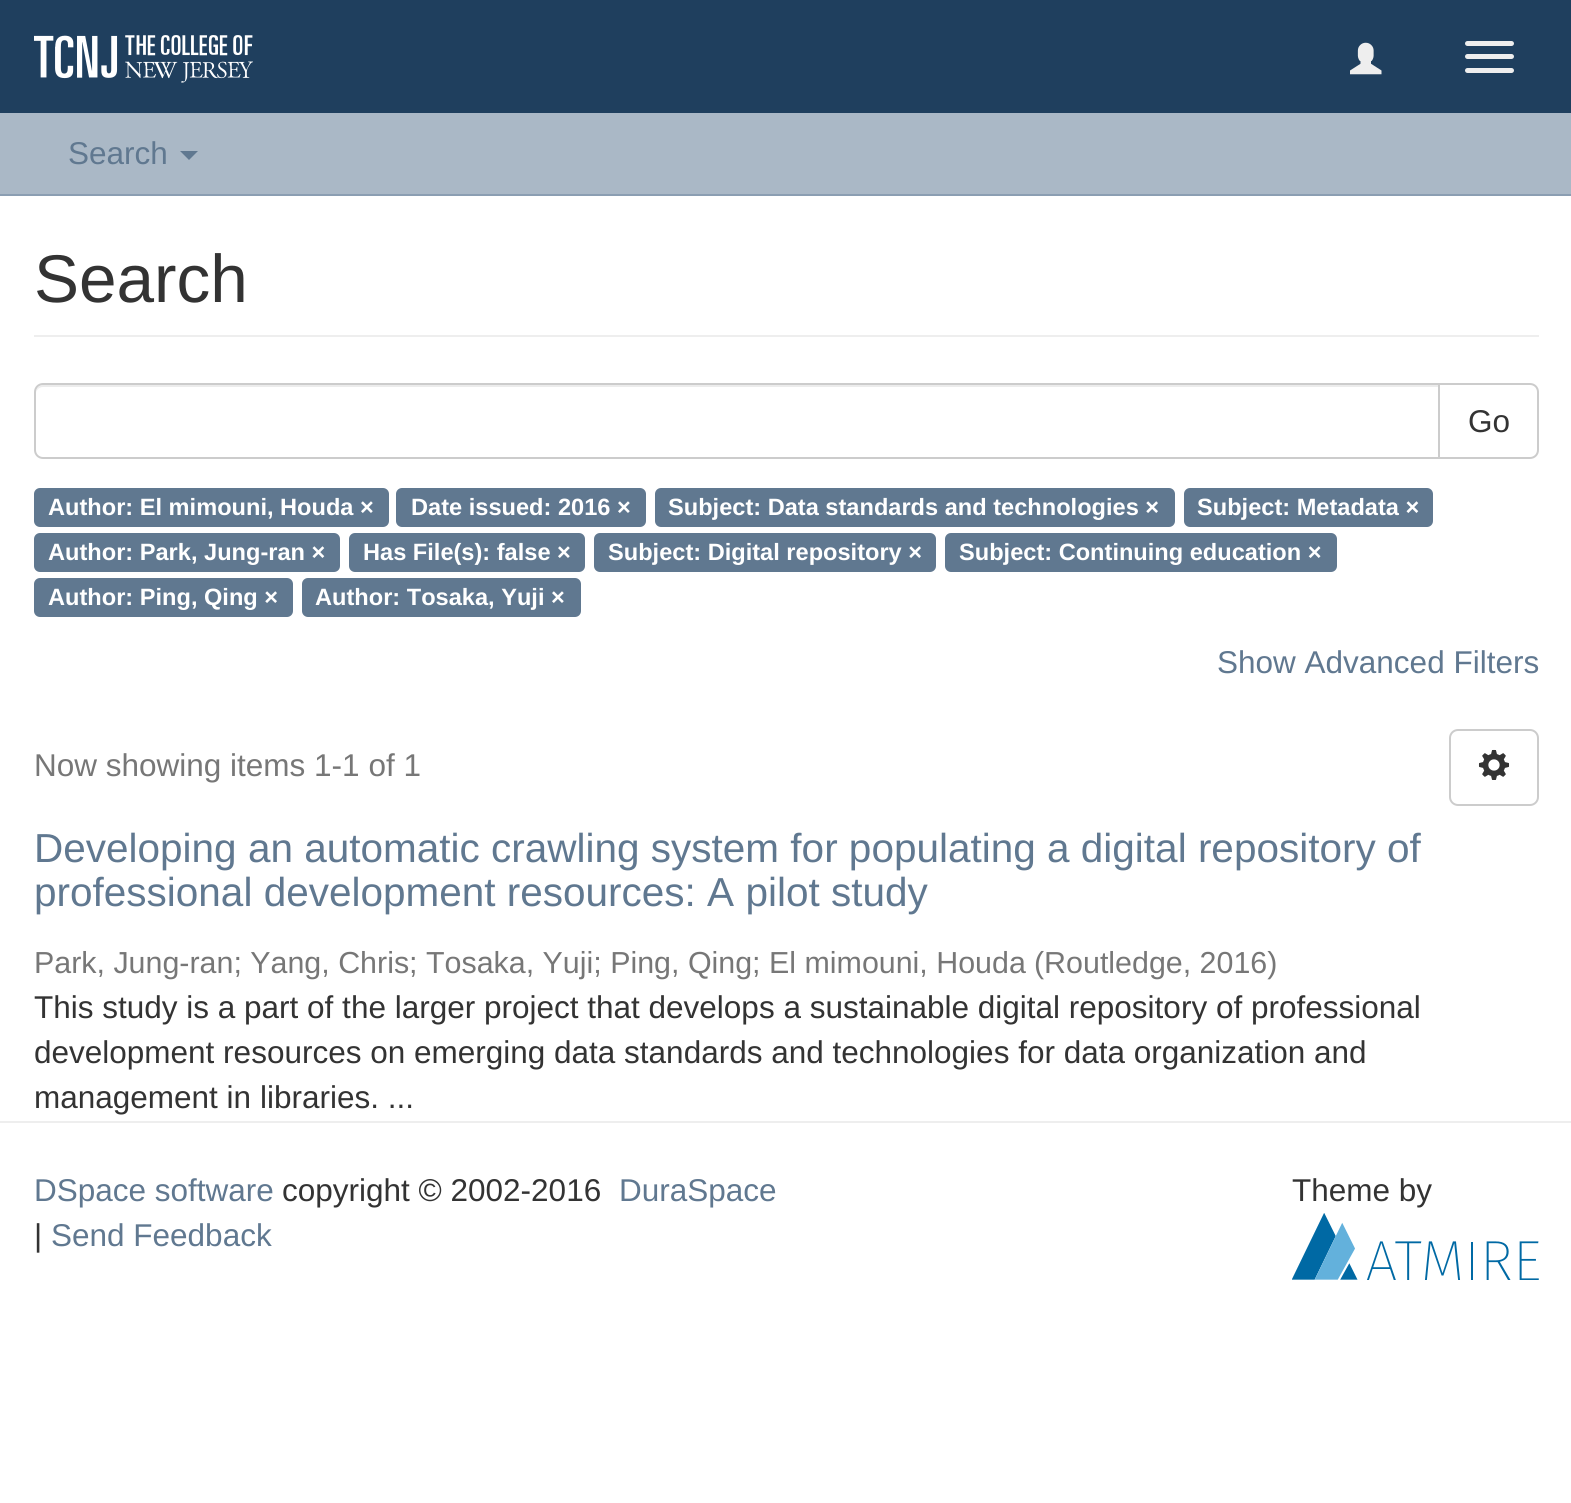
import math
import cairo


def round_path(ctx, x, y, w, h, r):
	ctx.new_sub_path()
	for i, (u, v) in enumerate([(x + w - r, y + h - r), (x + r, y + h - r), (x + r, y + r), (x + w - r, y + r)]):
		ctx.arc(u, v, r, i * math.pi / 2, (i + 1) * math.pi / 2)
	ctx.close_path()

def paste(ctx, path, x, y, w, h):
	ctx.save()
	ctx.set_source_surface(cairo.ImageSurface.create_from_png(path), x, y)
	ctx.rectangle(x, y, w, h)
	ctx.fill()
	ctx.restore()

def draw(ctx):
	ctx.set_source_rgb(1, 1, 1)
	ctx.paint()
	ctx.set_source_rgb(0.122, 0.247, 0.369)
	ctx.rectangle(0, 0, 1571, 113)
	ctx.fill()
	paste(ctx, 'media/1.png', 34, 35, 219, 48)
	paste(ctx, 'media/2.png', 1350, 42, 32, 33)
	ctx.set_source_rgb(0.933, 0.933, 0.933)
	round_path(ctx, 1465, 41, 49, 5, 2.5)
	ctx.fill()
	round_path(ctx, 1465, 54, 49, 5, 2.5)
	ctx.fill()
	round_path(ctx, 1465, 68, 49, 5, 2.5)
	ctx.fill()
	ctx.set_source_rgb(0.667, 0.722, 0.776)
	ctx.rectangle(0, 113, 1571, 81)
	ctx.fill()
	ctx.set_source_rgb(0.545, 0.62, 0.698)
	ctx.rectangle(0, 194, 1571, 2)
	ctx.fill()
	ctx.select_font_face('Liberation Sans')
	ctx.set_font_size(31.5)
	ctx.set_source_rgb(0.376, 0.471, 0.565)
	ctx.move_to(68, 164)
	ctx.show_text('Search')
	ctx.new_path()
	ctx.move_to(180, 151)
	ctx.line_to(198, 151)
	ctx.line_to(189, 160)
	ctx.close_path()
	ctx.fill()
	ctx.set_source_rgb(0.933, 0.933, 0.933)
	ctx.rectangle(34, 335, 1505, 2)
	ctx.fill()
	ctx.set_font_size(67.5)
	ctx.set_source_rgb(0.2, 0.2, 0.2)
	ctx.move_to(34, 302)
	ctx.show_text('Search')
	ctx.new_path()
	ctx.move_to(1439, 384)
	ctx.line_to(1530, 384)
	ctx.curve_to(1534.5, 384, 1538, 387.5, 1538, 392)
	ctx.line_to(1538, 450)
	ctx.curve_to(1538, 454.5, 1534.5, 458, 1530, 458)
	ctx.line_to(1439, 458)
	ctx.close_path()
	ctx.set_source_rgb(0.8, 0.8, 0.8)
	ctx.stroke()
	ctx.set_source_rgb(1, 1, 1)
	ctx.new_path()
	ctx.move_to(43, 383)
	ctx.line_to(1440, 383)
	ctx.line_to(1440, 459)
	ctx.line_to(43, 459)
	ctx.curve_to(38, 459, 34, 455, 34, 450)
	ctx.line_to(34, 392)
	ctx.curve_to(34, 387, 38, 383, 43, 383)
	ctx.close_path()
	ctx.fill()
	ctx.set_source_rgb(0.925, 0.925, 0.925)
	ctx.new_path()
	ctx.move_to(43, 387)
	ctx.line_to(1438, 387)
	ctx.line_to(1438, 385)
	ctx.line_to(43, 385)
	ctx.curve_to(38, 385, 36, 390, 36, 394)
	ctx.curve_to(36, 390, 39, 387, 43, 387)
	ctx.close_path()
	ctx.fill()
	ctx.new_path()
	ctx.move_to(43, 384)
	ctx.line_to(1439, 384)
	ctx.line_to(1439, 458)
	ctx.line_to(43, 458)
	ctx.curve_to(38.5, 458, 35, 454.5, 35, 450)
	ctx.line_to(35, 392)
	ctx.curve_to(35, 387.5, 38.5, 384, 43, 384)
	ctx.close_path()
	ctx.set_source_rgb(0.8, 0.8, 0.8)
	ctx.stroke()
	ctx.set_font_size(31.5)
	ctx.set_source_rgb(0.2, 0.2, 0.2)
	ctx.move_to(1468, 432)
	ctx.show_text('Go')
	ctx.set_source_rgb(0.376, 0.471, 0.565)
	round_path(ctx, 34, 488, 355, 39, 6)
	ctx.fill()
	ctx.select_font_face('Liberation Sans', cairo.FONT_SLANT_NORMAL, cairo.FONT_WEIGHT_BOLD)
	ctx.set_font_size(23.6)
	ctx.set_source_rgb(1, 1, 1)
	ctx.move_to(48, 515)
	ctx.show_text('Author: El mimouni, Houda ×')
	ctx.set_source_rgb(0.376, 0.471, 0.565)
	round_path(ctx, 396, 488, 250, 39, 6)
	ctx.fill()
	ctx.set_source_rgb(1, 1, 1)
	ctx.move_to(411, 515)
	ctx.show_text('Date issued: 2016 ×')
	ctx.set_source_rgb(0.376, 0.471, 0.565)
	round_path(ctx, 655, 488, 520, 39, 6)
	ctx.fill()
	ctx.set_source_rgb(1, 1, 1)
	ctx.move_to(668, 515)
	ctx.show_text('Subject: Data standards and technologies ×')
	ctx.set_source_rgb(0.376, 0.471, 0.565)
	round_path(ctx, 1184, 488, 249, 39, 6)
	ctx.fill()
	ctx.set_source_rgb(1, 1, 1)
	ctx.move_to(1197, 515)
	ctx.show_text('Subject: Metadata ×')
	ctx.set_source_rgb(0.376, 0.471, 0.565)
	round_path(ctx, 34, 533, 306, 39, 6)
	ctx.fill()
	ctx.set_source_rgb(1, 1, 1)
	ctx.move_to(48, 560)
	ctx.show_text('Author: Park, Jung-ran ×')
	ctx.set_source_rgb(0.376, 0.471, 0.565)
	round_path(ctx, 349, 533, 236, 39, 6)
	ctx.fill()
	ctx.set_source_rgb(1, 1, 1)
	ctx.move_to(363, 560)
	ctx.show_text('Has File(s): false ×')
	ctx.set_source_rgb(0.376, 0.471, 0.565)
	round_path(ctx, 594, 533, 342, 39, 6)
	ctx.fill()
	ctx.set_source_rgb(1, 1, 1)
	ctx.move_to(608, 560)
	ctx.show_text('Subject: Digital repository ×')
	ctx.set_source_rgb(0.376, 0.471, 0.565)
	round_path(ctx, 945, 533, 392, 39, 6)
	ctx.fill()
	ctx.set_source_rgb(1, 1, 1)
	ctx.move_to(959, 560)
	ctx.show_text('Subject: Continuing education ×')
	ctx.set_source_rgb(0.376, 0.471, 0.565)
	round_path(ctx, 34, 578, 259, 39, 6)
	ctx.fill()
	ctx.set_source_rgb(1, 1, 1)
	ctx.move_to(48, 605)
	ctx.show_text('Author: Ping, Qing ×')
	ctx.set_source_rgb(0.376, 0.471, 0.565)
	round_path(ctx, 302, 578, 279, 39, 6)
	ctx.fill()
	ctx.set_source_rgb(1, 1, 1)
	ctx.move_to(315, 605)
	ctx.show_text('Author: Tosaka, Yuji ×')
	ctx.select_font_face('Liberation Sans')
	ctx.set_font_size(31.5)
	ctx.set_source_rgb(0.376, 0.471, 0.565)
	ctx.move_to(1217, 673)
	ctx.show_text('Show Advanced Filters')
	ctx.set_source_rgb(0.467, 0.467, 0.467)
	ctx.move_to(34, 776)
	ctx.show_text('Now showing items 1-1 of 1')
	round_path(ctx, 1450, 730, 88, 75, 8)
	ctx.set_source_rgb(0.8, 0.8, 0.8)
	ctx.stroke()
	paste(ctx, 'media/3.png', 1478, 749, 32, 31)
	ctx.set_font_size(40.5)
	ctx.set_source_rgb(0.376, 0.471, 0.565)
	ctx.move_to(34, 862)
	ctx.show_text('Developing an automatic crawling system for populating a digital repository of')
	ctx.move_to(34, 906)
	ctx.show_text('professional development resources: A pilot study')
	ctx.set_font_size(30.4)
	ctx.set_source_rgb(0.467, 0.467, 0.467)
	ctx.move_to(34, 973)
	ctx.show_text('Park, Jung-ran; Yang, Chris; Tosaka, Yuji; Ping, Qing; El mimouni, Houda')
	ctx.move_to(1034, 973)
	ctx.show_text('(Routledge, 2016)')
	ctx.set_font_size(31.5)
	ctx.set_source_rgb(0.2, 0.2, 0.2)
	for x, y, s in [
		(34, 1018, 'This study is a part of the larger project that develops a sustainable digital repository of professional'),
		(34, 1063, 'development resources on emerging data standards and technologies for data organization and'),
		(34, 1108, 'management in libraries. ...'),
	]:
		ctx.move_to(x, y)
		ctx.show_text(s)
	ctx.set_source_rgb(0.933, 0.933, 0.933)
	ctx.rectangle(0, 1121, 1571, 2)
	ctx.fill()
	ctx.set_source_rgb(0.376, 0.471, 0.565)
	ctx.move_to(34, 1201)
	ctx.show_text('DSpace software')
	ctx.set_source_rgb(0.2, 0.2, 0.2)
	ctx.move_to(282, 1201)
	ctx.show_text('copyright © 2002-2016')
	ctx.set_source_rgb(0.376, 0.471, 0.565)
	ctx.move_to(619, 1201)
	ctx.show_text('DuraSpace')
	ctx.set_source_rgb(0.2, 0.2, 0.2)
	ctx.move_to(34, 1246)
	ctx.show_text('|')
	ctx.set_source_rgb(0.376, 0.471, 0.565)
	ctx.move_to(51, 1246)
	ctx.show_text('Send Feedback')
	ctx.set_source_rgb(0.2, 0.2, 0.2)
	ctx.move_to(1292, 1201)
	ctx.show_text('Theme by')
	paste(ctx, 'media/4.png', 1292, 1213, 247, 67)


surface = cairo.ImageSurface(cairo.FORMAT_RGB24, 1571, 1503)
ctx = cairo.Context(surface)
options = cairo.FontOptions()
options.set_hint_metrics(cairo.HINT_METRICS_OFF)
options.set_hint_style(cairo.HINT_STYLE_NONE)
ctx.set_font_options(options)
ctx.set_miter_limit(4)
draw(ctx)
surface.write_to_png('image.png')
